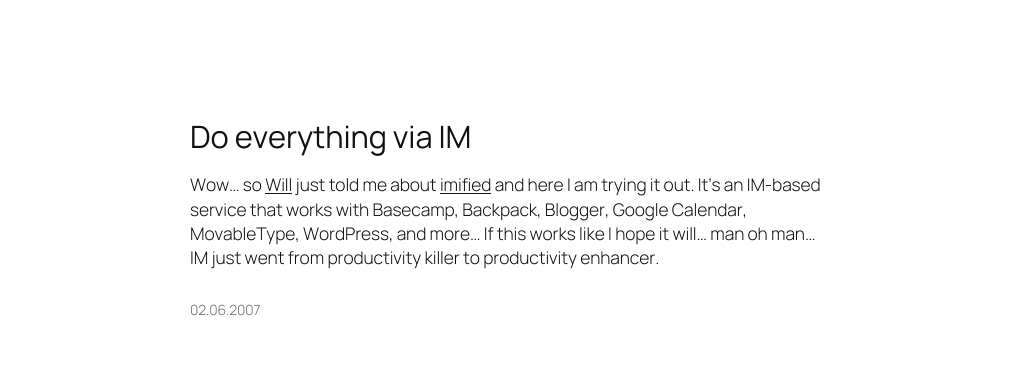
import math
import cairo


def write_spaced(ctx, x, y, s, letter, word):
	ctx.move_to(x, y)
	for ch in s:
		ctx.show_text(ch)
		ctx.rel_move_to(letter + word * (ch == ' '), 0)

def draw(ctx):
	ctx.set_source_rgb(1, 1, 1)
	ctx.paint()
	ctx.select_font_face('Manrope')
	ctx.set_font_size(30.75)
	ctx.set_source_rgb(0.067, 0.067, 0.067)
	write_spaced(ctx, 190, 148, 'Do everything via IM', -0.1, 0)
	ctx.select_font_face('Manrope Light')
	ctx.set_font_size(17.4)
	write_spaced(ctx, 190, 191, 'Wow… so Will just told me about imified and here I am trying it out. It’s an IM-based', -0.1, 0)
	ctx.rectangle(265, 193, 27, 1)
	ctx.fill()
	ctx.rectangle(440, 193, 51, 1)
	ctx.fill()
	for x, y, s in [
		(190, 216, 'service that works with Basecamp, Backpack, Blogger, Google Calendar,'),
		(190, 240, 'MovableType, WordPress, and more… If this works like I hope it will… man oh man…'),
		(190, 264, 'IM just went from productivity killer to productivity enhancer.'),
	]:
		write_spaced(ctx, x, y, s, -0.1, 0)
	ctx.set_font_size(14)
	ctx.set_source_rgb(0.408, 0.408, 0.408)
	write_spaced(ctx, 190, 315, '02.06.2007', -0.1, 0)


surface = cairo.ImageSurface(cairo.FORMAT_RGB24, 1025, 366)
ctx = cairo.Context(surface)
options = cairo.FontOptions()
options.set_hint_metrics(cairo.HINT_METRICS_OFF)
options.set_hint_style(cairo.HINT_STYLE_NONE)
ctx.set_font_options(options)
ctx.set_miter_limit(4)
draw(ctx)
surface.write_to_png('image.png')
